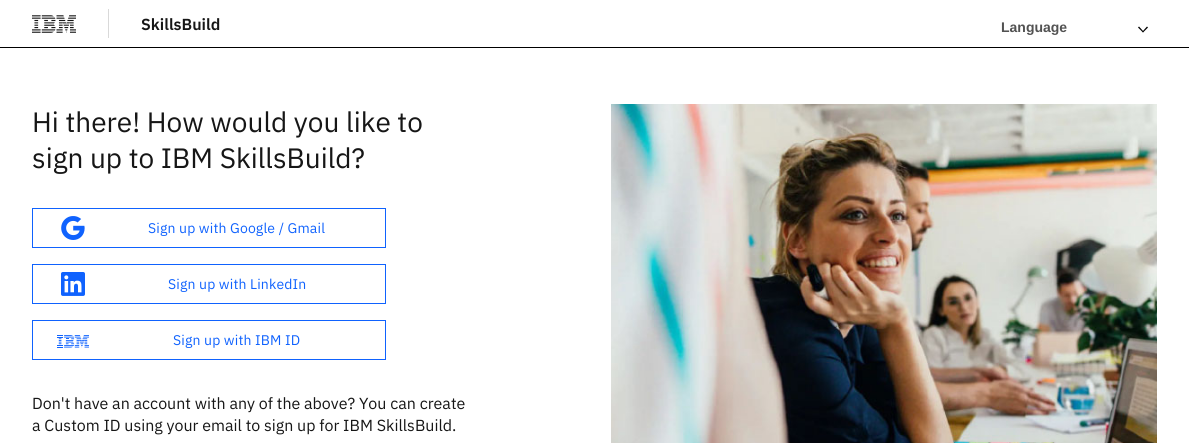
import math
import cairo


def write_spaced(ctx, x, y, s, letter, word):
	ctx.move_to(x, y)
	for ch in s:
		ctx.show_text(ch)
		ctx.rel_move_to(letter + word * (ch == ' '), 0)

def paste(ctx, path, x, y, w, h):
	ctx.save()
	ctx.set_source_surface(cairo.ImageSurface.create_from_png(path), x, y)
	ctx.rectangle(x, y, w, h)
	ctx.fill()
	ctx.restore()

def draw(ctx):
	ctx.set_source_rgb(1, 1, 1)
	ctx.paint()
	ctx.set_source_rgb(0, 0, 0)
	ctx.rectangle(0, 47, 1189, 1)
	ctx.fill()
	paste(ctx, 'media/1.png', 32, 15, 44, 18)
	ctx.set_source_rgb(0.851, 0.851, 0.851)
	ctx.rectangle(108, 9, 1, 29)
	ctx.fill()
	ctx.select_font_face('IBM Plex Sans SemiBold')
	ctx.set_font_size(16)
	ctx.set_source_rgb(0.086, 0.086, 0.086)
	ctx.move_to(141, 30)
	ctx.show_text('SkillsBuild')
	ctx.select_font_face('Liberation Sans', cairo.FONT_SLANT_NORMAL, cairo.FONT_WEIGHT_BOLD)
	ctx.set_font_size(14)
	ctx.set_source_rgb(0.322, 0.322, 0.322)
	ctx.move_to(1001, 32)
	ctx.show_text('Language')
	ctx.set_source_rgb(0, 0, 0)
	ctx.new_path()
	ctx.move_to(1147, 26.5)
	ctx.line_to(1148, 27.5)
	ctx.line_to(1143, 32.5)
	ctx.line_to(1142.5, 31.5)
	ctx.close_path()
	ctx.fill()
	ctx.new_path()
	ctx.move_to(1139, 26.5)
	ctx.line_to(1143.5, 31.5)
	ctx.line_to(1143, 32.5)
	ctx.line_to(1138, 27.5)
	ctx.close_path()
	ctx.fill()
	ctx.select_font_face('IBM Plex Sans')
	ctx.set_font_size(28)
	ctx.set_source_rgb(0.086, 0.086, 0.086)
	ctx.move_to(32, 132)
	ctx.show_text('Hi there! How would you like to')
	ctx.move_to(32, 168)
	ctx.show_text('sign up to IBM SkillsBuild?')
	ctx.rectangle(32.5, 208.5, 353, 39)
	ctx.set_source_rgb(0.059, 0.384, 0.996)
	ctx.set_line_width(1)
	ctx.stroke()
	paste(ctx, 'media/2.png', 61, 216, 24, 24)
	ctx.set_font_size(14)
	write_spaced(ctx, 148, 233, 'Sign up with Google / Gmail', 0.15, 0)
	ctx.rectangle(32.5, 264.5, 353, 39)
	ctx.stroke()
	paste(ctx, 'media/3.png', 61, 272, 24, 24)
	write_spaced(ctx, 168, 289, 'Sign up with LinkedIn', 0.15, 0)
	ctx.rectangle(32.5, 320.5, 353, 39)
	ctx.stroke()
	paste(ctx, 'media/4.png', 57, 335, 32, 13)
	write_spaced(ctx, 173, 345, 'Sign up with IBM ID', 0.15, 0)
	ctx.set_font_size(16)
	ctx.set_source_rgb(0.086, 0.086, 0.086)
	ctx.move_to(32, 409)
	ctx.show_text('Don\'t have an account with any of the above? You can create')
	ctx.move_to(32, 431)
	ctx.show_text('a Custom ID using your email to sign up for IBM SkillsBuild.')
	paste(ctx, 'media/5.png', 611, 104, 546, 339)


surface = cairo.ImageSurface(cairo.FORMAT_RGB24, 1189, 443)
ctx = cairo.Context(surface)
options = cairo.FontOptions()
options.set_hint_metrics(cairo.HINT_METRICS_OFF)
options.set_hint_style(cairo.HINT_STYLE_NONE)
ctx.set_font_options(options)
ctx.set_miter_limit(4)
draw(ctx)
surface.write_to_png('image.png')
